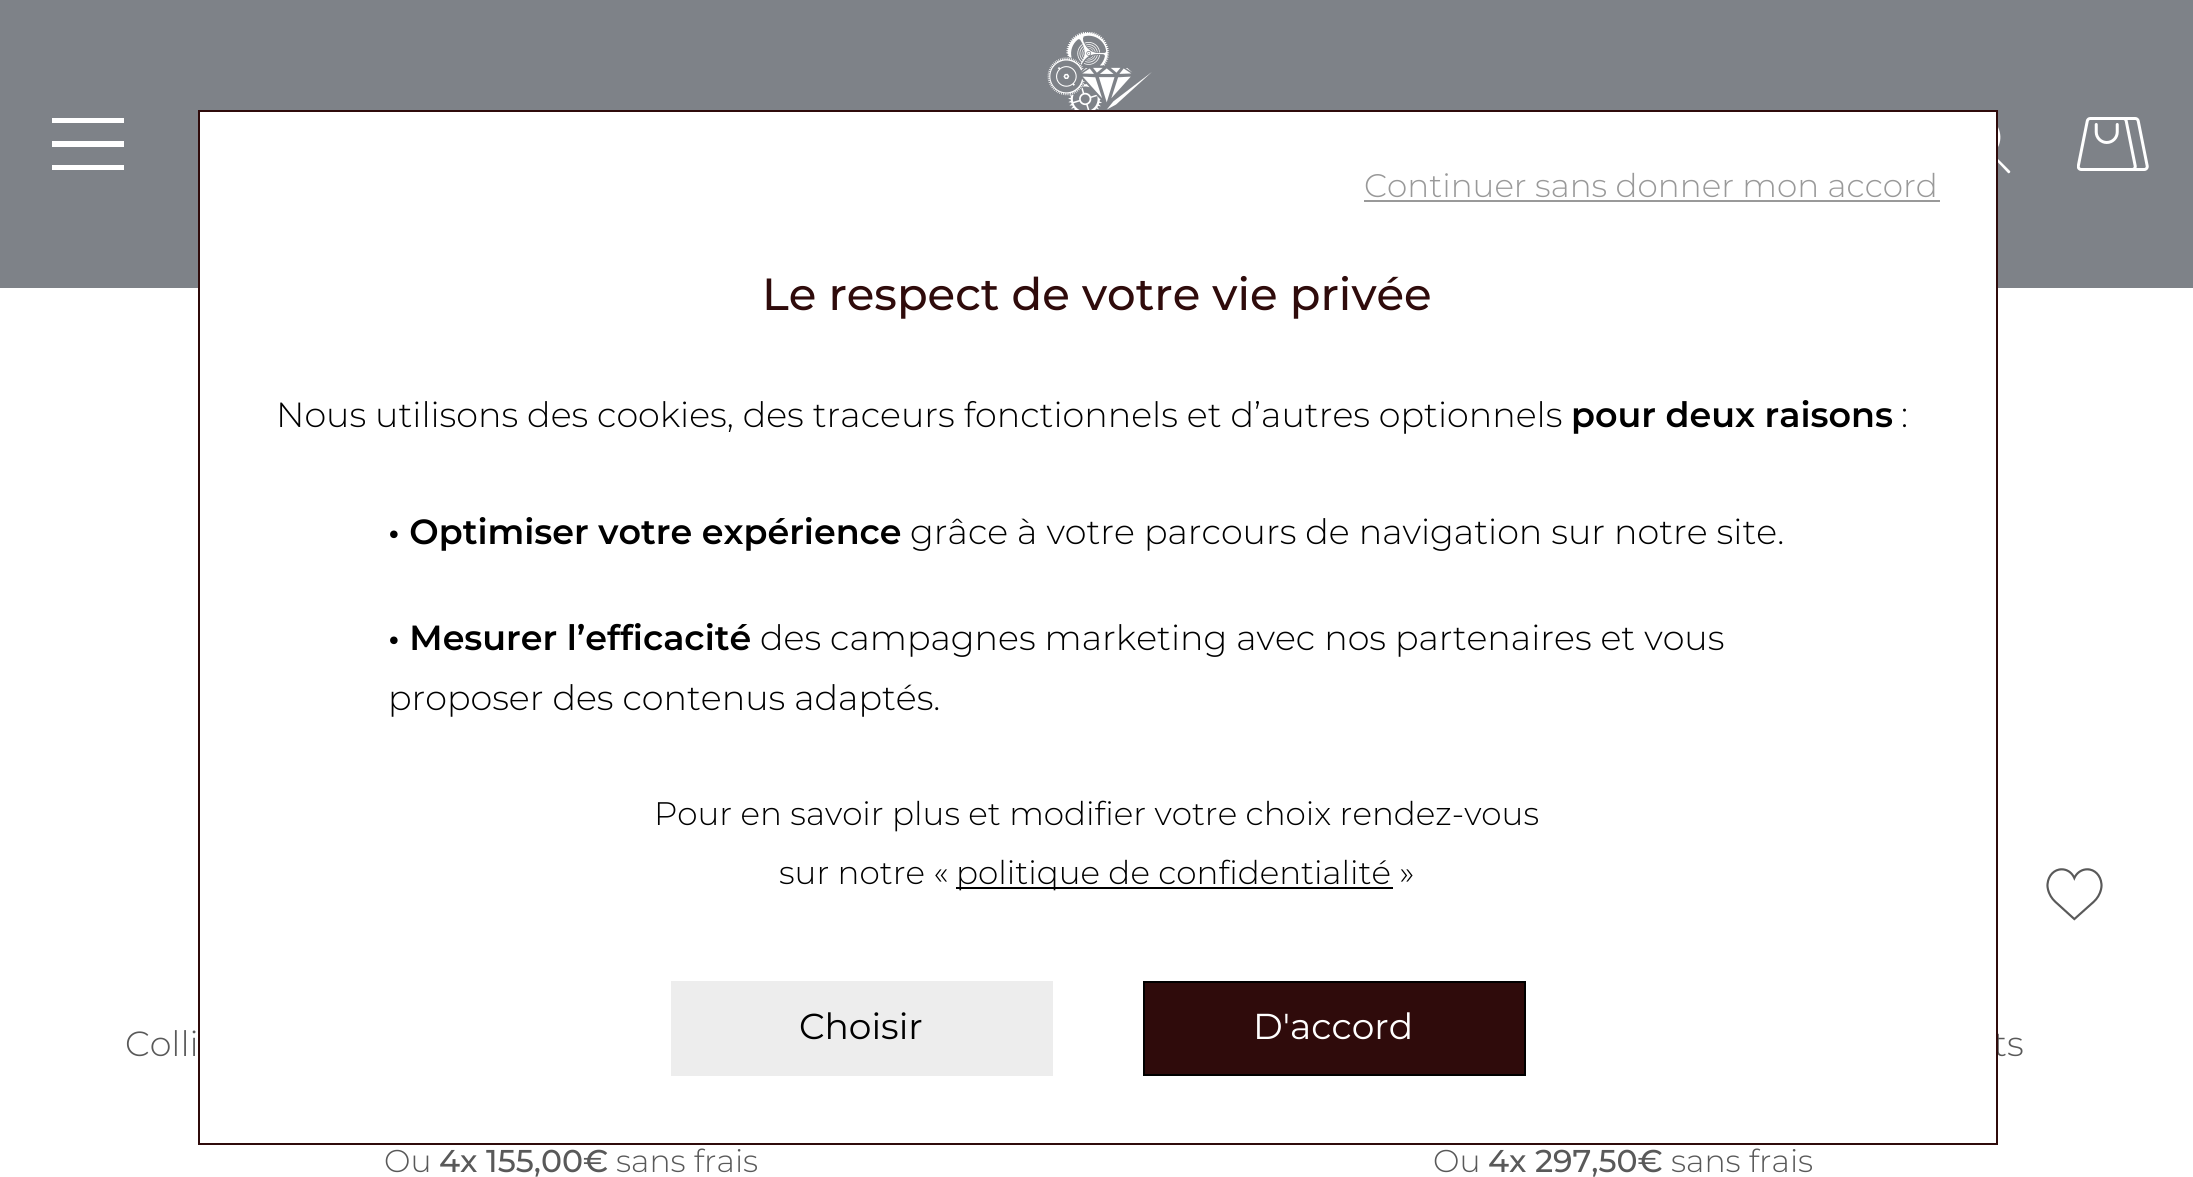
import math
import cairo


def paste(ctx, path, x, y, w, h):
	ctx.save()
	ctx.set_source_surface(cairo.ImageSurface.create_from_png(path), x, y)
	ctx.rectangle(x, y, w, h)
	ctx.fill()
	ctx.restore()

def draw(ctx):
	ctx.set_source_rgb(1, 1, 1)
	ctx.paint()
	ctx.set_source_rgb(0.494, 0.51, 0.533)
	ctx.rectangle(0, 0, 2193, 288)
	ctx.fill()
	paste(ctx, 'media/1.png', 1047, 32, 105, 78)
	ctx.set_source_rgb(1, 1, 1)
	ctx.rectangle(52, 118, 72, 5)
	ctx.rectangle(52, 141, 72, 6)
	ctx.rectangle(52, 165, 72, 5)
	ctx.fill()
	ctx.new_path()
	ctx.move_to(2010, 171)
	ctx.line_to(1993, 154)
	ctx.curve_to(2015, 132, 1983, 98, 1960, 119)
	ctx.curve_to(1937, 140, 1967, 175, 1991, 155)
	ctx.line_to(2008, 173)
	ctx.curve_to(2009, 174, 2011, 172, 2010, 171)
	ctx.close_path()
	ctx.move_to(1976, 158)
	ctx.curve_to(1947, 158, 1947, 115, 1976, 115)
	ctx.curve_to(2005, 115, 2005, 158, 1976, 158)
	ctx.close_path()
	ctx.fill()
	paste(ctx, 'media/2.png', 2077, 117, 72, 54)
	ctx.select_font_face('Montserrat Light')
	ctx.set_font_size(34.9)
	ctx.set_source_rgb(0.349, 0.349, 0.349)
	ctx.move_to(1993, 1056)
	ctx.show_text('ts')
	ctx.set_source_rgb(1, 1, 1)
	ctx.rectangle(200, 112, 1796, 928)
	ctx.fill()
	ctx.rectangle(199, 111, 1798, 1033)
	ctx.set_source_rgb(0.184, 0.043, 0.043)
	ctx.stroke()
	ctx.set_font_size(32.6)
	ctx.set_source_rgb(0.6, 0.6, 0.6)
	ctx.move_to(1364, 197)
	ctx.show_text('Continuer sans donner mon accord')
	ctx.rectangle(1364, 200, 576, 2)
	ctx.fill()
	ctx.select_font_face('Montserrat Medium')
	ctx.set_font_size(45)
	ctx.set_source_rgb(0.184, 0.043, 0.043)
	ctx.move_to(762, 310)
	ctx.show_text('Le respect de votre vie privée')
	ctx.select_font_face('Montserrat Light')
	ctx.set_font_size(34.9)
	ctx.set_source_rgb(0, 0, 0)
	ctx.move_to(276, 427)
	ctx.show_text('Nous utilisons des cookies, des traceurs fonctionnels et d’autres optionnels')
	ctx.select_font_face('Montserrat SemiBold')
	ctx.move_to(1571, 427)
	ctx.show_text('pour deux raisons')
	ctx.select_font_face('Montserrat Light')
	ctx.move_to(1901, 427)
	ctx.show_text(':')
	ctx.select_font_face('Montserrat SemiBold')
	ctx.move_to(388, 544)
	ctx.show_text('• Optimiser votre expérience')
	ctx.select_font_face('Montserrat Light')
	ctx.move_to(910, 544)
	ctx.show_text('grâce à votre parcours de navigation sur notre site.')
	ctx.select_font_face('Montserrat SemiBold')
	ctx.move_to(388, 650)
	ctx.show_text('• Mesurer l’efficacité')
	ctx.select_font_face('Montserrat Light')
	ctx.move_to(760, 650)
	ctx.show_text('des campagnes marketing avec nos partenaires et vous')
	ctx.move_to(388, 710)
	ctx.show_text('proposer des contenus adaptés.')
	ctx.set_font_size(32.6)
	ctx.move_to(654, 825)
	ctx.show_text('Pour en savoir plus et modifier votre choix rendez-vous')
	ctx.move_to(779, 884)
	ctx.show_text('sur notre «')
	ctx.rectangle(956, 887, 437, 2)
	ctx.fill()
	ctx.move_to(956, 884)
	ctx.show_text('politique de confidentialité »')
	ctx.set_source_rgb(0.929, 0.929, 0.929)
	ctx.rectangle(671, 981, 382, 95)
	ctx.fill()
	ctx.select_font_face('Montserrat')
	ctx.set_font_size(36)
	ctx.set_source_rgb(0, 0, 0)
	ctx.move_to(799, 1039)
	ctx.show_text('Choisir')
	ctx.set_source_rgb(0.184, 0.043, 0.043)
	ctx.rectangle(1144, 982, 381, 93)
	ctx.fill_preserve()
	ctx.set_source_rgb(0, 0, 0)
	ctx.stroke()
	ctx.set_source_rgb(1, 1, 1)
	ctx.move_to(1253, 1039)
	ctx.show_text('D\'accord')
	ctx.select_font_face('Montserrat Light')
	ctx.set_font_size(34.9)
	ctx.set_source_rgb(0.349, 0.349, 0.349)
	ctx.move_to(125, 1056)
	ctx.show_text('Colli')
	ctx.set_font_size(31.5)
	ctx.move_to(384, 1172)
	ctx.show_text('Ou')
	ctx.select_font_face('Montserrat Medium')
	ctx.move_to(439, 1172)
	ctx.show_text('4x')
	ctx.move_to(486, 1172)
	ctx.show_text('155,00€')
	ctx.select_font_face('Montserrat Light')
	ctx.move_to(616, 1172)
	ctx.show_text('sans frais')
	paste(ctx, 'media/3.png', 2046, 868, 57, 53)
	ctx.move_to(1433, 1172)
	ctx.show_text('Ou')
	ctx.select_font_face('Montserrat Medium')
	ctx.move_to(1488, 1172)
	ctx.show_text('4x')
	ctx.move_to(1535, 1172)
	ctx.show_text('297,50€')
	ctx.select_font_face('Montserrat Light')
	ctx.move_to(1671, 1172)
	ctx.show_text('sans frais')


surface = cairo.ImageSurface(cairo.FORMAT_RGB24, 2193, 1177)
ctx = cairo.Context(surface)
options = cairo.FontOptions()
options.set_hint_metrics(cairo.HINT_METRICS_OFF)
options.set_hint_style(cairo.HINT_STYLE_NONE)
ctx.set_font_options(options)
ctx.set_miter_limit(4)
draw(ctx)
surface.write_to_png('image.png')
